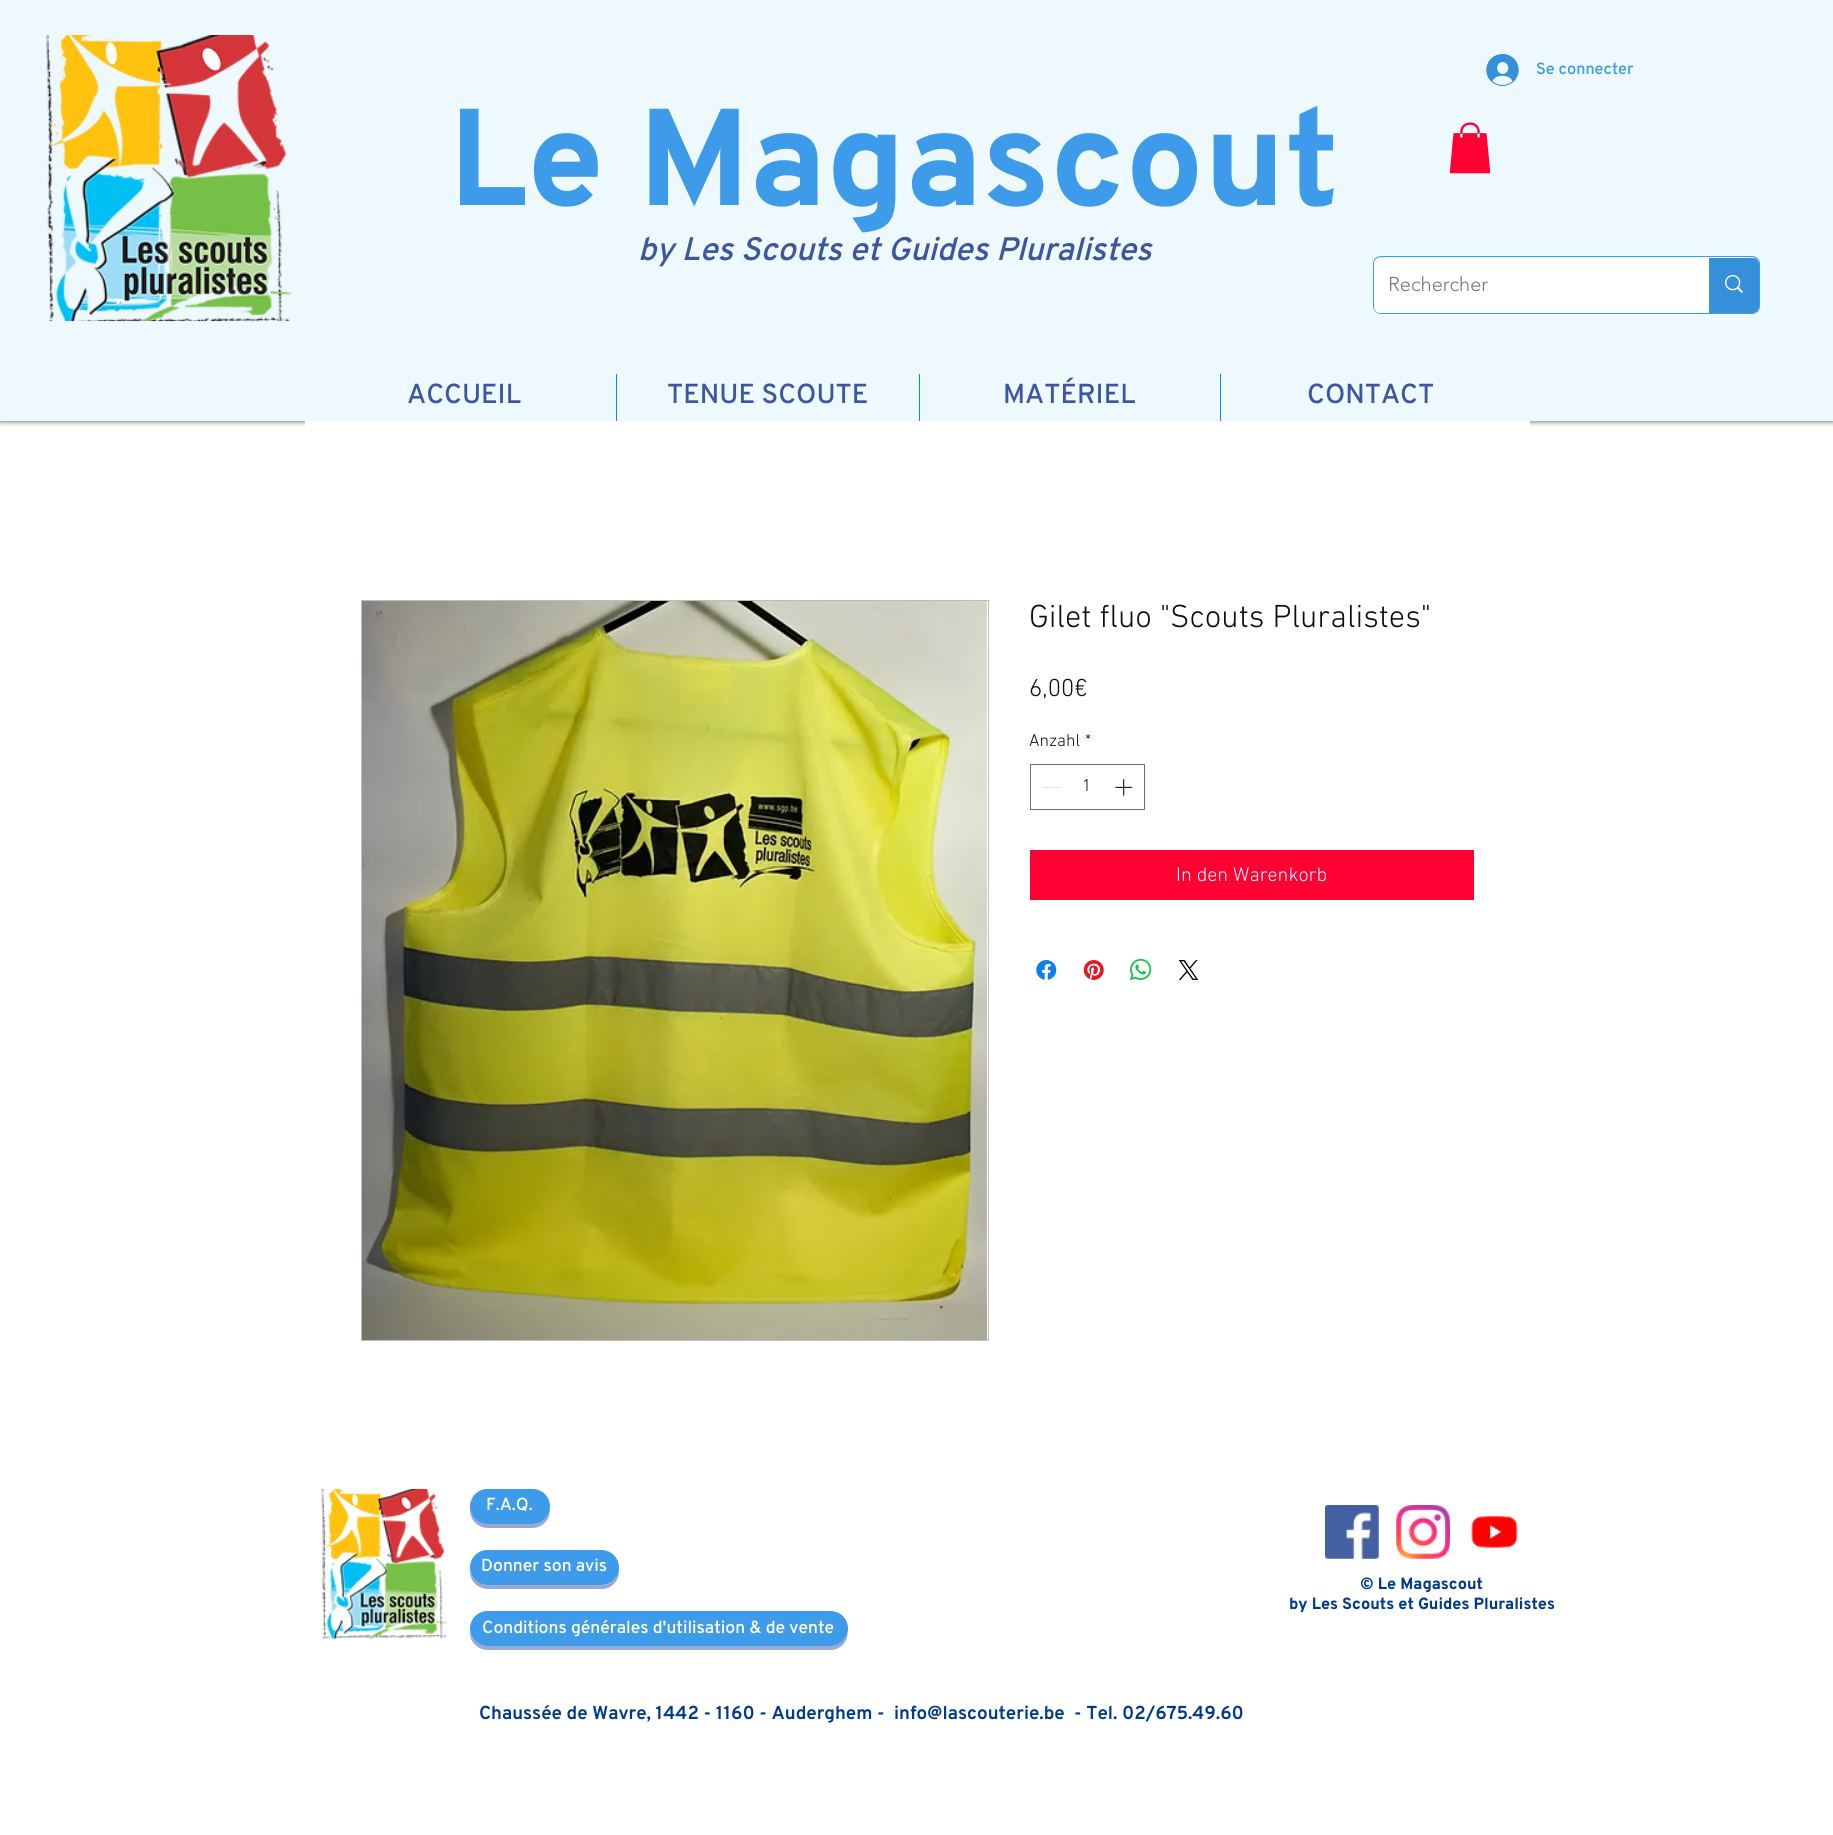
import math
import cairo


def round_path(ctx, x, y, w, h, r):
	ctx.new_sub_path()
	for i, (u, v) in enumerate([(x + w - r, y + h - r), (x + r, y + h - r), (x + r, y + r), (x + w - r, y + r)]):
		ctx.arc(u, v, r, i * math.pi / 2, (i + 1) * math.pi / 2)
	ctx.close_path()

def blur_box(ctx, x, y, w, h, r, blur, alpha):
	ctx.push_group_with_content(cairo.CONTENT_ALPHA)
	ctx.set_operator(cairo.OPERATOR_SOURCE)
	for i in range(15, -16, -2):
		e = blur * i / 6
		if min(w, h) + 2 * e > 0:
			ctx.set_source_rgba(0, 0, 0, alpha * math.erfc((i - 1) / 8.5) / 2)
			round_path(ctx, x - e, y - e, w + 2 * e, h + 2 * e, max(0, min(r + e + blur * .6, min(w, h) / 2 + e)))
			ctx.fill()
	ctx.mask(ctx.pop_group())

def paste(ctx, path, x, y, w, h):
	ctx.save()
	ctx.set_source_surface(cairo.ImageSurface.create_from_png(path), x, y)
	ctx.rectangle(x, y, w, h)
	ctx.fill()
	ctx.restore()

def draw(ctx):
	ctx.set_source_rgb(1, 1, 1)
	ctx.paint()
	ctx.set_source_rgb(0, 0, 0)
	blur_box(ctx, 0, 0, 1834, 421, 0, 3, 0.7)
	ctx.set_source_rgb(0.933, 0.976, 0.996)
	ctx.rectangle(0, 0, 1833, 421)
	ctx.fill()
	paste(ctx, 'media/1.png', 46, 35, 246, 287)
	paste(ctx, 'media/2.png', 1486, 54, 33, 32)
	ctx.select_font_face('Overpass SemiBold')
	ctx.set_font_size(16.25)
	ctx.set_source_rgb(0.239, 0.608, 0.914)
	ctx.move_to(1536, 74)
	ctx.show_text('Se connecter')
	ctx.select_font_face('Overpass ExtraBold')
	ctx.set_font_size(137.5)
	ctx.move_to(449, 205)
	ctx.show_text('Le Magascout')
	ctx.select_font_face('Overpass SemiBold', cairo.FONT_SLANT_ITALIC)
	ctx.set_font_size(32.5)
	ctx.set_source_rgb(0.243, 0.337, 0.62)
	ctx.move_to(638, 260)
	ctx.show_text('by Les Scouts et Guides Pluralistes')
	paste(ctx, 'media/3.png', 1449, 122, 42, 52)
	round_path(ctx, 1373.5, 256.5, 386, 57, 7.5)
	ctx.set_source_rgb(0.239, 0.608, 0.914)
	ctx.set_line_width(1)
	ctx.stroke()
	ctx.set_source_rgb(1, 1, 1)
	round_path(ctx, 1374, 258, 385, 55, 6)
	ctx.fill()
	ctx.select_font_face('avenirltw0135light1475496 Light')
	ctx.set_font_size(20)
	ctx.set_source_rgb(0.471, 0.471, 0.471)
	ctx.move_to(1388, 291)
	ctx.show_text('Rechercher')
	ctx.set_source_rgb(0.212, 0.561, 0.851)
	ctx.new_path()
	ctx.move_to(1709, 258)
	ctx.line_to(1753, 258)
	ctx.curve_to(1756.5, 258, 1759, 260.5, 1759, 264)
	ctx.line_to(1759, 307)
	ctx.curve_to(1759, 310.5, 1756.5, 313, 1753, 313)
	ctx.line_to(1709, 313)
	ctx.close_path()
	ctx.fill()
	ctx.set_source_rgb(0.239, 0.608, 0.914)
	ctx.rectangle(1709, 258, 1, 55)
	ctx.fill()
	paste(ctx, 'media/4.png', 1725, 275, 18, 18)
	ctx.select_font_face('Overpass SemiBold')
	ctx.set_font_size(27.5)
	ctx.set_source_rgb(0.243, 0.337, 0.62)
	ctx.move_to(407, 403)
	ctx.show_text('ACCUEIL')
	ctx.set_source_rgb(0, 0.541, 0.988)
	ctx.rectangle(616, 374, 1, 47)
	ctx.fill()
	ctx.set_source_rgb(0.243, 0.337, 0.62)
	ctx.move_to(667, 403)
	ctx.show_text('TENUE SCOUTE')
	ctx.set_source_rgb(0, 0.541, 0.988)
	ctx.rectangle(919, 374, 1, 47)
	ctx.fill()
	ctx.set_source_rgb(0.243, 0.337, 0.62)
	ctx.move_to(1003, 403)
	ctx.show_text('MATÉRIEL')
	ctx.set_source_rgb(0, 0.541, 0.988)
	ctx.rectangle(1220, 374, 1, 47)
	ctx.fill()
	ctx.set_source_rgb(0.243, 0.337, 0.62)
	ctx.move_to(1307, 403)
	ctx.show_text('CONTACT')
	ctx.set_source_rgb(1, 1, 1)
	ctx.rectangle(305, 421, 1225, 7)
	ctx.fill()
	ctx.rectangle(361.5, 600.5, 627, 740)
	ctx.set_source_rgb(0.741, 0.741, 0.741)
	ctx.stroke()
	paste(ctx, 'media/5.png', 362, 601, 625, 739)
	ctx.select_font_face('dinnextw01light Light')
	ctx.set_font_size(32.5)
	ctx.set_source_rgb(0.055, 0.055, 0.055)
	ctx.move_to(1029, 627)
	ctx.show_text('Gilet fluo "Scouts Pluralistes"')
	ctx.set_font_size(25)
	ctx.move_to(1029, 696)
	ctx.show_text('6,00€')
	ctx.set_font_size(17.5)
	ctx.move_to(1029, 746)
	ctx.show_text('Anzahl')
	ctx.move_to(1085, 746)
	ctx.show_text('*')
	ctx.rectangle(1030.5, 764.5, 114, 45)
	ctx.set_source_rgb(0.431, 0.431, 0.431)
	ctx.stroke()
	ctx.set_source_rgb(0.89, 0.89, 0.89)
	ctx.rectangle(1044, 787, 17, 1)
	ctx.fill()
	ctx.set_source_rgb(0.055, 0.055, 0.055)
	ctx.move_to(1082, 791)
	ctx.show_text('1')
	paste(ctx, 'media/6.png', 1115, 779, 17, 17)
	ctx.set_source_rgb(1, 0, 0.2)
	ctx.rectangle(1030, 850, 444, 50)
	ctx.fill()
	ctx.set_font_size(20)
	ctx.set_source_rgb(1, 1, 1)
	ctx.move_to(1176, 881)
	ctx.show_text('In den Warenkorb')
	paste(ctx, 'media/7.png', 1036, 960, 21, 20)
	paste(ctx, 'media/8.png', 1083, 960, 21, 20)
	paste(ctx, 'media/9.png', 1130, 958, 22, 23)
	paste(ctx, 'media/10.png', 1178, 960, 21, 20)
	paste(ctx, 'media/11.png', 321, 1488, 126, 151)
	ctx.set_source_rgb(0.604, 0.663, 0.831)
	ctx.new_path()
	ctx.move_to(470, 1508)
	ctx.line_to(470, 1510)
	ctx.curve_to(470, 1520, 478, 1528, 488, 1528)
	ctx.line_to(532, 1528)
	ctx.curve_to(542, 1528, 550, 1520, 550, 1510)
	ctx.line_to(550, 1508)
	ctx.curve_to(549, 1517, 541, 1524, 532, 1524)
	ctx.line_to(488, 1524)
	ctx.curve_to(479, 1524, 471, 1517, 470, 1508)
	ctx.close_path()
	ctx.fill()
	ctx.set_source_rgb(0.239, 0.608, 0.914)
	round_path(ctx, 470, 1489, 80, 35, 17.5)
	ctx.fill()
	ctx.select_font_face('Overpass SemiBold')
	ctx.set_font_size(17.5)
	ctx.set_source_rgb(1, 1, 1)
	ctx.move_to(486, 1510)
	ctx.show_text('F.A.Q.')
	paste(ctx, 'media/12.png', 1325, 1505, 54, 54)
	paste(ctx, 'media/13.png', 1396, 1505, 54, 54)
	paste(ctx, 'media/14.png', 1471, 1515, 47, 34)
	ctx.set_source_rgb(0.604, 0.663, 0.831)
	ctx.new_path()
	ctx.move_to(470, 1570)
	ctx.line_to(470, 1572)
	ctx.curve_to(470, 1581, 478, 1589, 488, 1589)
	ctx.line_to(602, 1589)
	ctx.curve_to(611, 1589, 619, 1581, 619, 1572)
	ctx.line_to(619, 1568)
	ctx.curve_to(618, 1578, 611, 1585, 601, 1585)
	ctx.line_to(488, 1585)
	ctx.curve_to(479, 1585, 471, 1578, 470, 1570)
	ctx.close_path()
	ctx.fill()
	ctx.set_source_rgb(0.239, 0.608, 0.914)
	round_path(ctx, 470, 1550, 149, 35, 17.5)
	ctx.fill()
	ctx.set_source_rgb(1, 1, 1)
	ctx.move_to(481, 1571)
	ctx.show_text('Donner son avis')
	ctx.select_font_face('Overpass ExtraBold')
	ctx.set_font_size(16.25)
	ctx.set_source_rgb(0, 0.227, 0.545)
	ctx.move_to(1360, 1589)
	ctx.show_text('© Le Magascout')
	ctx.move_to(1289, 1609)
	ctx.show_text('by Les Scouts et Guides Pluralistes')
	ctx.set_source_rgb(0.604, 0.663, 0.831)
	ctx.new_path()
	ctx.move_to(470, 1631)
	ctx.curve_to(469, 1641, 477, 1650, 488, 1650)
	ctx.line_to(830, 1650)
	ctx.curve_to(842, 1650, 850, 1639, 847, 1628)
	ctx.line_to(848, 1629)
	ctx.curve_to(848, 1638, 840, 1646, 830, 1646)
	ctx.line_to(488, 1646)
	ctx.curve_to(478, 1646, 471, 1639, 470, 1631)
	ctx.close_path()
	ctx.fill()
	ctx.set_source_rgb(0.239, 0.608, 0.914)
	round_path(ctx, 470, 1611, 378, 35, 17.5)
	ctx.fill()
	ctx.select_font_face('Overpass SemiBold')
	ctx.set_font_size(17.5)
	ctx.set_source_rgb(1, 1, 1)
	ctx.move_to(482, 1633)
	ctx.show_text('Conditions générales d\'utilisation & de vente')
	ctx.select_font_face('Overpass', cairo.FONT_SLANT_NORMAL, cairo.FONT_WEIGHT_BOLD)
	ctx.set_font_size(18.75)
	ctx.set_source_rgb(0, 0.227, 0.545)
	for x, y, s in [
		(479, 1719, 'Chaussée de Wavre, 1442 - 1160 - Auderghem -'),
		(894, 1719, 'info@lascouterie.be'),
		(1074, 1719, '- Tel. 02/675.49.60'),
	]:
		ctx.move_to(x, y)
		ctx.show_text(s)


surface = cairo.ImageSurface(cairo.FORMAT_RGB24, 1833, 1835)
ctx = cairo.Context(surface)
options = cairo.FontOptions()
options.set_hint_metrics(cairo.HINT_METRICS_OFF)
options.set_hint_style(cairo.HINT_STYLE_NONE)
ctx.set_font_options(options)
ctx.set_miter_limit(4)
draw(ctx)
surface.write_to_png('image.png')
